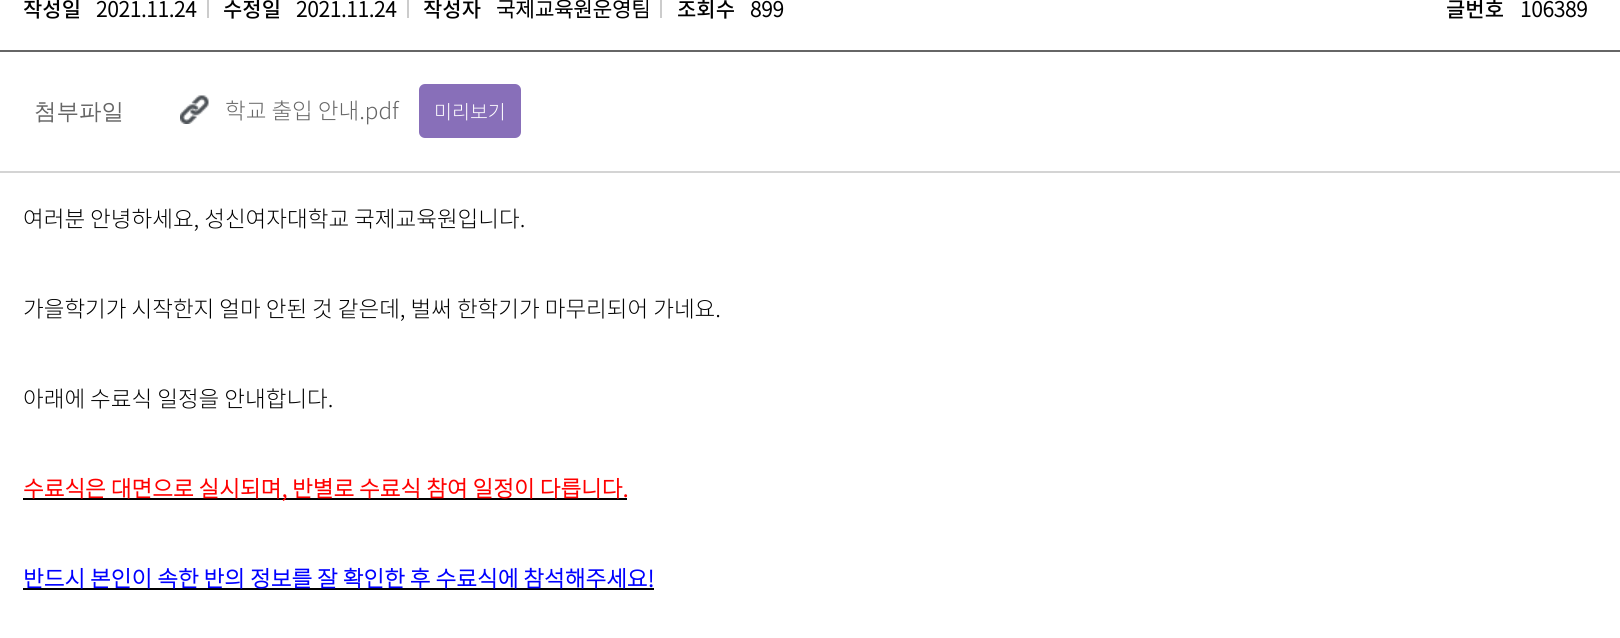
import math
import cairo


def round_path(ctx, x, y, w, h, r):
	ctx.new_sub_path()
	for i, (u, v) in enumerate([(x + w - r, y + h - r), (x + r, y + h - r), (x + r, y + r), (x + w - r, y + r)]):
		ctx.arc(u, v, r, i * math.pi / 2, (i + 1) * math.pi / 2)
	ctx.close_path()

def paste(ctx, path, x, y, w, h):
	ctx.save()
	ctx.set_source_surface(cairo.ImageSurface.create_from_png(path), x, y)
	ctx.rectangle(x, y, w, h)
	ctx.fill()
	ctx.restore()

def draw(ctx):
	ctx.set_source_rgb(1, 1, 1)
	ctx.paint()
	ctx.set_source_rgb(0.4, 0.4, 0.4)
	ctx.rectangle(0, 50, 1620, 2)
	ctx.fill()
	ctx.set_source_rgb(0.8, 0.8, 0.8)
	ctx.rectangle(207, 0, 2, 18)
	ctx.fill()
	ctx.select_font_face('Noto Sans KR Medium')
	ctx.set_font_size(21)
	ctx.set_source_rgb(0, 0, 0)
	ctx.move_to(23, 17)
	ctx.show_text('작성일')
	ctx.select_font_face('Noto Sans KR', cairo.FONT_SLANT_NORMAL, cairo.FONT_WEIGHT_BOLD)
	ctx.move_to(96, 17)
	ctx.show_text('2021.11.24')
	ctx.set_source_rgb(0.8, 0.8, 0.8)
	ctx.rectangle(407, 0, 2, 18)
	ctx.fill()
	ctx.select_font_face('Noto Sans KR Medium')
	ctx.set_source_rgb(0, 0, 0)
	ctx.move_to(223, 17)
	ctx.show_text('수정일')
	ctx.select_font_face('Noto Sans KR', cairo.FONT_SLANT_NORMAL, cairo.FONT_WEIGHT_BOLD)
	ctx.move_to(296, 17)
	ctx.show_text('2021.11.24')
	ctx.set_source_rgb(0.8, 0.8, 0.8)
	ctx.rectangle(660, 0, 2, 18)
	ctx.fill()
	ctx.select_font_face('Noto Sans KR Medium')
	ctx.set_source_rgb(0, 0, 0)
	ctx.move_to(423, 17)
	ctx.show_text('작성자')
	ctx.select_font_face('Noto Sans KR', cairo.FONT_SLANT_NORMAL, cairo.FONT_WEIGHT_BOLD)
	ctx.move_to(496, 17)
	ctx.show_text('국제교육원운영팀')
	ctx.select_font_face('Noto Sans KR Medium')
	ctx.move_to(677, 17)
	ctx.show_text('조회수')
	ctx.select_font_face('Noto Sans KR', cairo.FONT_SLANT_NORMAL, cairo.FONT_WEIGHT_BOLD)
	ctx.move_to(750, 17)
	ctx.show_text('899')
	ctx.select_font_face('Noto Sans KR Medium')
	ctx.move_to(1446, 17)
	ctx.show_text('글번호')
	ctx.select_font_face('Noto Sans KR', cairo.FONT_SLANT_NORMAL, cairo.FONT_WEIGHT_BOLD)
	ctx.move_to(1520, 17)
	ctx.show_text('106389')
	ctx.set_source_rgb(0.831, 0.831, 0.831)
	ctx.rectangle(0, 171, 1620, 2)
	ctx.fill()
	ctx.select_font_face('WenQuanYi Zen Hei Medium')
	ctx.set_font_size(22.5)
	ctx.set_source_rgb(0.4, 0.4, 0.4)
	ctx.move_to(34, 119)
	ctx.show_text('첨부파일')
	paste(ctx, 'media/1.png', 180, 95, 29, 29)
	ctx.select_font_face('Noto Sans KR Light')
	ctx.move_to(225, 119)
	ctx.show_text('학교 출입 안내.pdf')
	ctx.set_source_rgb(0.533, 0.435, 0.725)
	round_path(ctx, 419, 84, 102, 54, 6)
	ctx.fill()
	ctx.set_font_size(19.5)
	ctx.set_source_rgb(1, 1, 1)
	ctx.move_to(434, 119)
	ctx.show_text('미리보기')
	ctx.set_font_size(22.5)
	ctx.set_source_rgb(0, 0, 0)
	for x, y, s in [
		(23, 227, '여러분 안녕하세요, 성신여자대학교 국제교육원입니다.'),
		(23, 317, '가을학기가 시작한지 얼마 안된 것 같은데, 벌써 한학기가 마무리되어 가네요.'),
		(23, 407, '아래에 수료식 일정을 안내합니다.'),
	]:
		ctx.move_to(x, y)
		ctx.show_text(s)
	ctx.rectangle(23, 498, 604, 2)
	ctx.fill()
	ctx.select_font_face('Noto Sans KR', cairo.FONT_SLANT_NORMAL, cairo.FONT_WEIGHT_BOLD)
	ctx.set_source_rgb(1, 0, 0)
	ctx.move_to(23, 497)
	ctx.show_text('수료식은 대면으로 실시되며, 반별로 수료식 참여 일정이 다릅니다.')
	ctx.set_source_rgb(0, 0, 0)
	ctx.rectangle(23, 588, 631, 2)
	ctx.fill()
	ctx.set_source_rgb(0, 0, 1)
	ctx.move_to(23, 587)
	ctx.show_text('반드시 본인이 속한 반의 정보를 잘 확인한 후 수료식에 참석해주세요!')


surface = cairo.ImageSurface(cairo.FORMAT_RGB24, 1620, 638)
ctx = cairo.Context(surface)
options = cairo.FontOptions()
options.set_hint_metrics(cairo.HINT_METRICS_OFF)
options.set_hint_style(cairo.HINT_STYLE_NONE)
ctx.set_font_options(options)
ctx.set_miter_limit(4)
draw(ctx)
surface.write_to_png('image.png')
